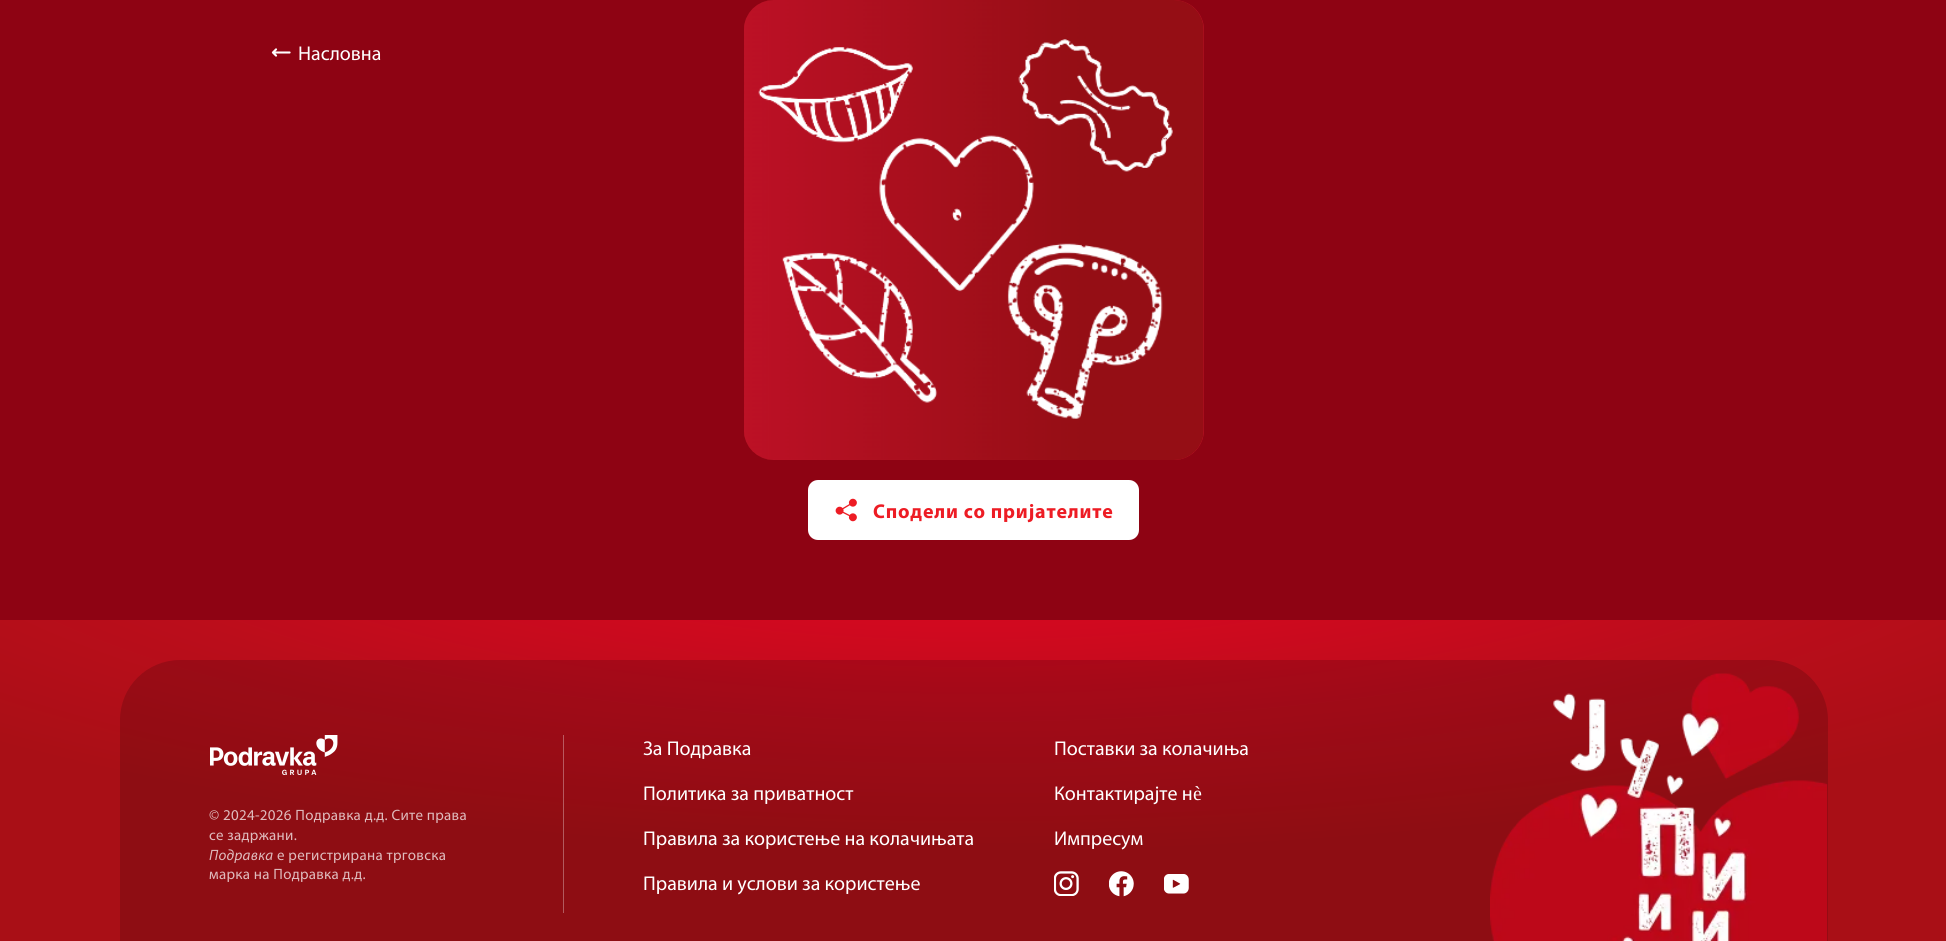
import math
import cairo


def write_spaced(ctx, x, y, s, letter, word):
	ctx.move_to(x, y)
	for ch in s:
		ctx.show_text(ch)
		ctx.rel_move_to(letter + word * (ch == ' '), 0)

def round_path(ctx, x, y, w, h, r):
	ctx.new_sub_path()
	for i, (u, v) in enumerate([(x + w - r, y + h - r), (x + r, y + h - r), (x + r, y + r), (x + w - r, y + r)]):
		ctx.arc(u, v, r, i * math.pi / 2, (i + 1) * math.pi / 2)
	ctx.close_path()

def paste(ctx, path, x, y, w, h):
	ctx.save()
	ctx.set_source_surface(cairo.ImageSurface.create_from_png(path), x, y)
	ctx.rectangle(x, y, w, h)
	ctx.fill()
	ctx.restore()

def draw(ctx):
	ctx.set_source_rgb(1, 1, 1)
	ctx.paint()
	gradient = cairo.RadialGradient(0, 0, 0, 0, 0, 1)
	gradient.set_matrix(cairo.Matrix(1 / 1404, 0, 0, 1 / 382, -1 * 972 / 1404, -1 * 471 / 382))
	gradient.add_color_stop_rgba(0, 0.894, 0.02, 0.129, 1)
	gradient.add_color_stop_rgba(0.16, 0.875, 0.024, 0.129, 1)
	gradient.add_color_stop_rgba(0.4, 0.82, 0.035, 0.122, 1)
	gradient.add_color_stop_rgba(0.69, 0.733, 0.051, 0.106, 1)
	gradient.add_color_stop_rgba(1, 0.663, 0.059, 0.086, 1)
	ctx.set_source(gradient)
	ctx.rectangle(0, 620, 1946, 321)
	ctx.fill()
	ctx.set_source_rgb(0.557, 0.012, 0.078)
	ctx.rectangle(0, 0, 1946, 620)
	ctx.fill()
	paste(ctx, 'media/1.png', 271, 48, 20, 9)
	ctx.select_font_face('Myriad')
	ctx.set_font_size(20)
	ctx.set_source_rgb(1, 1, 1)
	ctx.move_to(298, 60)
	ctx.show_text('Насловна')
	gradient = cairo.LinearGradient(1204, 230, 744, 230)
	gradient.add_color_stop_rgba(0, 0.741, 0.067, 0.149, 1)
	gradient.add_color_stop_rgba(1, 0.584, 0.055, 0.082, 1)
	ctx.set_source(gradient)
	round_path(ctx, 744, 0, 460, 460, 30)
	ctx.fill()
	paste(ctx, 'media/2.png', 744, 0, 460, 460)
	ctx.set_source_rgb(1, 1, 1)
	round_path(ctx, 808, 480, 331, 60, 10)
	ctx.fill()
	paste(ctx, 'media/3.png', 835, 498, 22, 24)
	ctx.select_font_face('Myriad', cairo.FONT_SLANT_NORMAL, cairo.FONT_WEIGHT_BOLD)
	ctx.set_source_rgb(0.929, 0.11, 0.141)
	write_spaced(ctx, 873, 518, 'Сподели со пријателите', 0.8, 0)
	ctx.set_source_rgba(0, 0, 0, 0.16)
	round_path(ctx, 120, 660, 1708, 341, 60)
	ctx.fill()
	paste(ctx, 'media/4.png', 210, 735, 128, 40)
	ctx.select_font_face('Myriad')
	ctx.set_font_size(15)
	ctx.set_source_rgb(0.875, 0.733, 0.741)
	write_spaced(ctx, 209, 820, '© 2024-2026 Подравка д.д. Сите права', 0.3, 0)
	write_spaced(ctx, 209, 840, 'се задржани.', 0.3, 0)
	ctx.select_font_face('Myriad', cairo.FONT_SLANT_ITALIC)
	write_spaced(ctx, 209, 860, 'Подравка', 0.3, 0)
	ctx.select_font_face('Myriad')
	write_spaced(ctx, 277, 860, 'е регистрирана трговска', 0.3, 0)
	write_spaced(ctx, 209, 879, 'марка на Подравка д.д.', 0.3, 0)
	ctx.set_source_rgba(1, 1, 1, 0.32)
	ctx.rectangle(563, 735, 1, 178)
	ctx.fill()
	ctx.set_font_size(20)
	ctx.set_source_rgb(1, 1, 1)
	for x, y, s in [
		(643, 755, 'За Подравка'),
		(643, 800, 'Политика за приватност'),
		(643, 845, 'Правила за користење на колачињата'),
		(643, 890, 'Правила и услови за користење'),
		(1054, 755, 'Поставки за колачиња'),
		(1054, 800, 'Контактирајте н'),
	]:
		ctx.move_to(x, y)
		ctx.show_text(s)
	ctx.select_font_face('Liberation Serif')
	ctx.move_to(1193, 800)
	ctx.show_text('è')
	ctx.select_font_face('Myriad')
	ctx.move_to(1054, 845)
	ctx.show_text('Импресум')
	paste(ctx, 'media/5.png', 1054, 871, 25, 25)
	paste(ctx, 'media/6.png', 1109, 871, 25, 26)
	paste(ctx, 'media/7.png', 1164, 874, 25, 20)
	paste(ctx, 'media/8.png', 1490, 673, 338, 268)


surface = cairo.ImageSurface(cairo.FORMAT_RGB24, 1946, 941)
ctx = cairo.Context(surface)
options = cairo.FontOptions()
options.set_hint_metrics(cairo.HINT_METRICS_OFF)
options.set_hint_style(cairo.HINT_STYLE_NONE)
ctx.set_font_options(options)
ctx.set_miter_limit(4)
draw(ctx)
surface.write_to_png('image.png')
